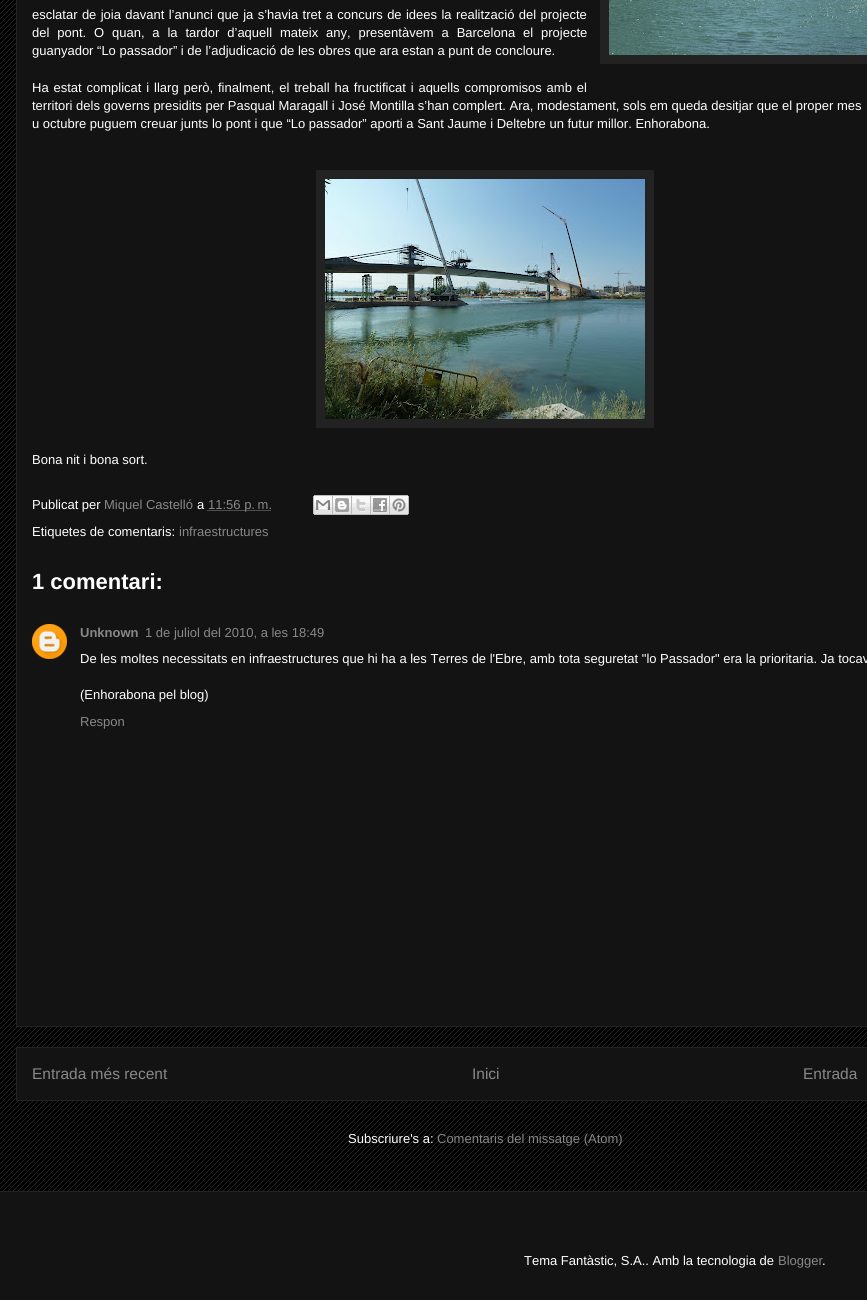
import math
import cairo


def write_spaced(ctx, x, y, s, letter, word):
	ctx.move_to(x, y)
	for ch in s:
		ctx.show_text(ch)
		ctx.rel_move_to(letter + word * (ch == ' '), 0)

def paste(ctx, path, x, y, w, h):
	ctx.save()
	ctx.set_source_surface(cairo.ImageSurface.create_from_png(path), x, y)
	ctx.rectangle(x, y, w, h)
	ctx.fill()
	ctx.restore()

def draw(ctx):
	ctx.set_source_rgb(0, 0, 0)
	ctx.paint()
	paste(ctx, 'media/1.png', 0, 0, 867, 1191)
	ctx.set_source_rgb(0.078, 0.078, 0.078)
	ctx.rectangle(16.5, -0.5, 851, 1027)
	ctx.fill_preserve()
	ctx.set_source_rgb(0.133, 0.133, 0.133)
	ctx.set_line_width(1)
	ctx.stroke()
	ctx.select_font_face('Liberation Sans')
	ctx.set_font_size(13)
	ctx.set_source_rgb(1, 1, 1)
	write_spaced(ctx, 32, 19, 'esclatar de joia davant l’anunci que ja s’havia tret a concurs de idees la realització del projecte', 0, 0.75)
	write_spaced(ctx, 32, 37, 'del pont. O quan, a la tardor d’aquell mateix any, presentàvem a Barcelona el projecte', 0, 4.25)
	ctx.move_to(32, 55)
	ctx.show_text('guanyador “Lo passador” i de l’adjudicació de les obres que ara estan a punt de concloure.')
	ctx.set_source_rgb(0.133, 0.133, 0.133)
	ctx.rectangle(600, 0, 267, 64)
	ctx.fill()
	paste(ctx, 'media/2.png', 609, 0, 258, 55)
	ctx.set_source_rgb(1, 1, 1)
	write_spaced(ctx, 32, 92, 'Ha estat complicat i llarg però, finalment, el treball ha fructificat i aquells compromisos amb el', 0, 1.25)
	ctx.move_to(32, 110)
	ctx.show_text('territori dels governs presidits per Pasqual Maragall i José Montilla s’han complert. Ara, modestament, sols em queda desitjar que el proper mes')
	ctx.move_to(32, 128)
	ctx.show_text('u octubre puguem creuar junts lo pont i que “Lo passador” aporti a Sant Jaume i Deltebre un futur millor. Enhorabona.')
	ctx.set_source_rgb(0.133, 0.133, 0.133)
	ctx.rectangle(316, 170, 338, 258)
	ctx.fill()
	paste(ctx, 'media/3.png', 325, 179, 320, 240)
	ctx.set_source_rgb(1, 1, 1)
	ctx.move_to(32, 464)
	ctx.show_text('Bona nit i bona sort.')
	ctx.move_to(32, 509)
	ctx.show_text('Publicat per')
	ctx.set_source_rgb(0.533, 0.533, 0.533)
	ctx.move_to(104, 509)
	ctx.show_text('Miquel Castelló')
	ctx.set_source_rgb(1, 1, 1)
	ctx.move_to(197, 509)
	ctx.show_text('a')
	ctx.new_path()
	ctx.move_to(207.5, 510.5)
	ctx.line_to(271.5, 510.5)
	ctx.set_source_rgb(0.533, 0.533, 0.533)
	ctx.set_dash([1, 1])
	ctx.stroke()
	ctx.move_to(208, 509)
	ctx.show_text('11:56 p. m.')
	paste(ctx, 'media/4.png', 313, 495, 20, 20)
	paste(ctx, 'media/5.png', 333, 495, 19, 20)
	paste(ctx, 'media/6.png', 352, 495, 19, 20)
	paste(ctx, 'media/7.png', 371, 495, 19, 20)
	paste(ctx, 'media/8.png', 390, 495, 19, 20)
	ctx.set_source_rgb(1, 1, 1)
	ctx.move_to(32, 536)
	ctx.show_text('Etiquetes de comentaris:')
	ctx.set_source_rgb(0.533, 0.533, 0.533)
	ctx.move_to(179, 536)
	ctx.show_text('infraestructures')
	ctx.select_font_face('Liberation Sans', cairo.FONT_SLANT_NORMAL, cairo.FONT_WEIGHT_BOLD)
	ctx.set_font_size(22)
	ctx.set_source_rgb(1, 1, 1)
	ctx.move_to(32, 589)
	ctx.show_text('1 comentari:')
	paste(ctx, 'media/9.png', 32, 624, 35, 35)
	ctx.set_font_size(13)
	ctx.set_source_rgb(0.533, 0.533, 0.533)
	ctx.move_to(80, 637)
	ctx.show_text('Unknown')
	ctx.select_font_face('Liberation Sans')
	ctx.move_to(145, 637)
	ctx.show_text('1 de juliol del 2010, a les 18:49')
	ctx.set_source_rgb(1, 1, 1)
	ctx.move_to(80, 663)
	ctx.show_text('De les moltes necessitats en infraestructures que hi ha a les Terres de l\'Ebre, amb tota seguretat "lo Passador" era la prioritaria. Ja tocav')
	ctx.move_to(80, 699)
	ctx.show_text('(Enhorabona pel blog)')
	ctx.set_source_rgb(0.533, 0.533, 0.533)
	ctx.move_to(80, 726)
	ctx.show_text('Respon')
	ctx.set_source_rgb(0.078, 0.078, 0.078)
	ctx.rectangle(16.5, 1047.5, 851, 53)
	ctx.fill_preserve()
	ctx.set_source_rgb(0.133, 0.133, 0.133)
	ctx.set_dash([])
	ctx.stroke()
	ctx.set_font_size(15.5)
	ctx.set_source_rgb(0.533, 0.533, 0.533)
	for x, y, s in [
		(32, 1079, 'Entrada més recent'),
		(472, 1079, 'Inici'),
		(803, 1079, 'Entrada'),
	]:
		ctx.move_to(x, y)
		ctx.show_text(s)
	ctx.set_font_size(13)
	ctx.set_source_rgb(1, 1, 1)
	ctx.move_to(348, 1143)
	ctx.show_text('Subscriure\'s a:')
	ctx.set_source_rgb(0.533, 0.533, 0.533)
	ctx.move_to(437, 1143)
	ctx.show_text('Comentaris del missatge (Atom)')
	ctx.set_source_rgb(0.078, 0.078, 0.078)
	ctx.rectangle(0, 1192, 867, 108)
	ctx.fill()
	ctx.set_source_rgb(0.133, 0.133, 0.133)
	ctx.rectangle(0, 1191, 867, 1)
	ctx.fill()
	ctx.set_source_rgb(1, 1, 1)
	ctx.move_to(524, 1265)
	ctx.show_text('Tema Fantàstic, S.A.. Amb la tecnologia de')
	ctx.set_source_rgb(0.533, 0.533, 0.533)
	ctx.move_to(778, 1265)
	ctx.show_text('Blogger')
	ctx.set_source_rgb(1, 1, 1)
	ctx.move_to(822, 1265)
	ctx.show_text('.')


surface = cairo.ImageSurface(cairo.FORMAT_RGB24, 867, 1300)
ctx = cairo.Context(surface)
options = cairo.FontOptions()
options.set_hint_metrics(cairo.HINT_METRICS_OFF)
options.set_hint_style(cairo.HINT_STYLE_NONE)
ctx.set_font_options(options)
ctx.set_miter_limit(4)
draw(ctx)
surface.write_to_png('image.png')
